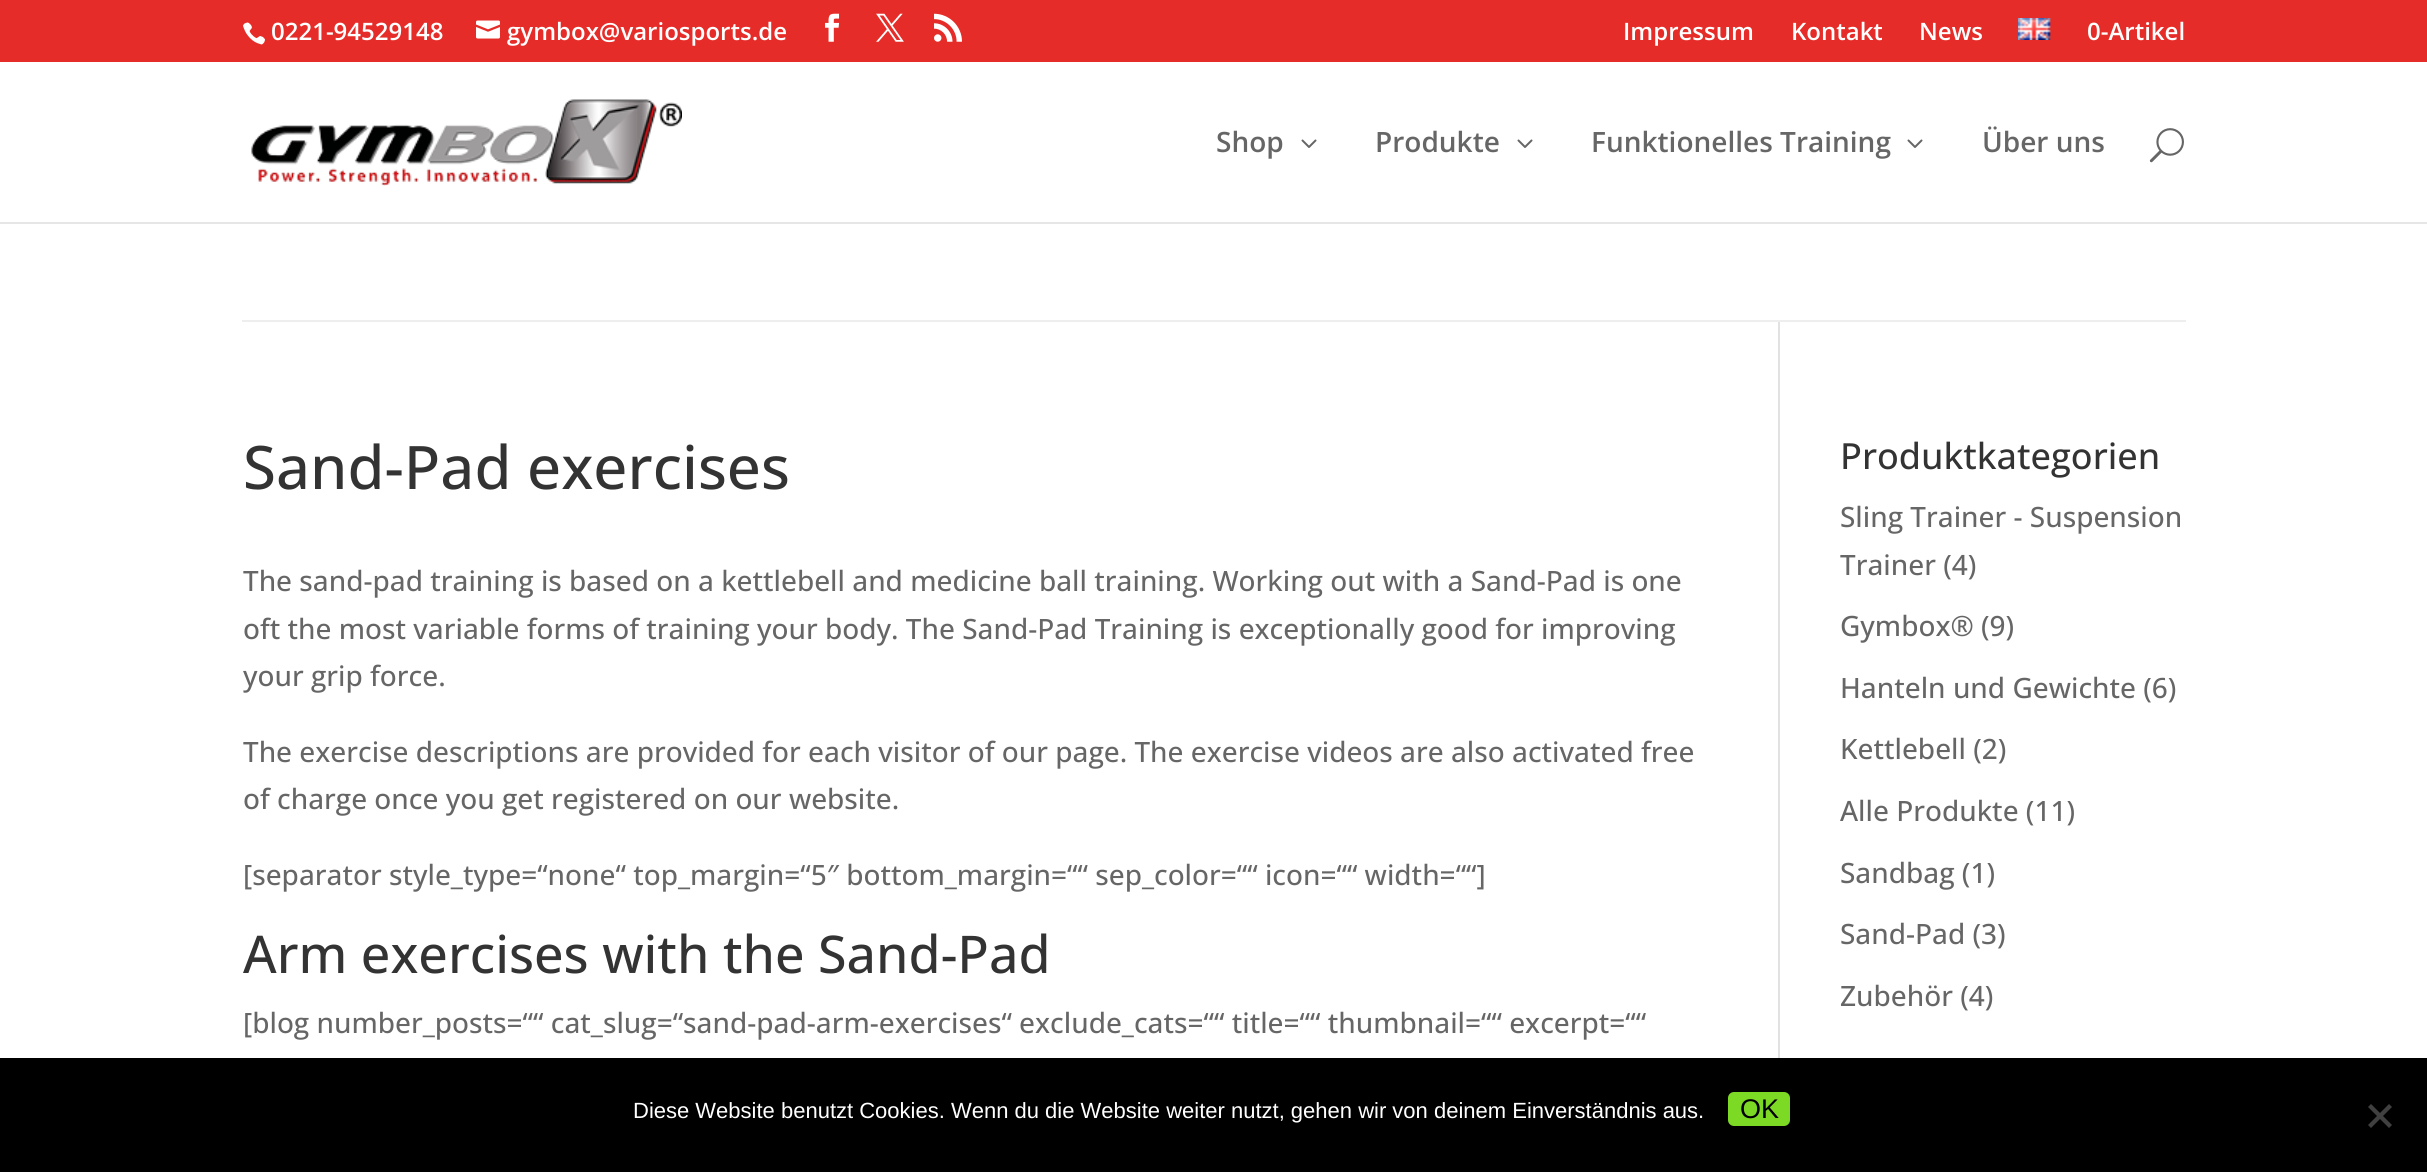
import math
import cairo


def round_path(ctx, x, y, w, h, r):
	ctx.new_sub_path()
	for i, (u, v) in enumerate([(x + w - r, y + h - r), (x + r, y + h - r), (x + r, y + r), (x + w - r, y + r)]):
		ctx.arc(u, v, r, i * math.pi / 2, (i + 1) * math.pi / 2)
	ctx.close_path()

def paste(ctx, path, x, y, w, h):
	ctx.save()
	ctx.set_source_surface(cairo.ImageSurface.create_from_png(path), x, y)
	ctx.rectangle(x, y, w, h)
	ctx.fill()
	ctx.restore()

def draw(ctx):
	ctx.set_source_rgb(1, 1, 1)
	ctx.paint()
	ctx.set_source_rgb(0.902, 0.173, 0.157)
	ctx.rectangle(0, 0, 2427, 62)
	ctx.fill()
	paste(ctx, 'media/1.png', 243, 22, 22, 23)
	ctx.select_font_face('Open Sans SemiBold')
	ctx.set_font_size(24)
	ctx.set_source_rgb(1, 1, 1)
	ctx.move_to(271, 40)
	ctx.show_text('0221-94529148')
	paste(ctx, 'media/2.png', 476, 20, 24, 19)
	ctx.move_to(507, 40)
	ctx.show_text('gymbox@variosports.de')
	paste(ctx, 'media/3.png', 825, 13, 15, 29)
	paste(ctx, 'media/4.png', 876, 13, 28, 29)
	paste(ctx, 'media/5.png', 934, 13, 28, 29)
	for x, y, s in [
		(1623, 40, 'Impressum'),
		(1791, 40, 'Kontakt'),
		(1919, 40, 'News'),
	]:
		ctx.move_to(x, y)
		ctx.show_text(s)
	paste(ctx, 'media/6.png', 2018, 18, 33, 22)
	ctx.move_to(2087, 40)
	ctx.show_text('0-Artikel')
	ctx.set_source_rgb(0.902, 0.902, 0.902)
	ctx.rectangle(0, 222, 2427, 2)
	ctx.fill()
	paste(ctx, 'media/7.png', 251, 99, 431, 87)
	ctx.set_font_size(28)
	ctx.set_source_rgb(0.4, 0.4, 0.4)
	ctx.move_to(1216, 152)
	ctx.show_text('Shop')
	paste(ctx, 'media/8.png', 1301, 139, 16, 9)
	ctx.move_to(1375, 152)
	ctx.show_text('Produkte')
	paste(ctx, 'media/8.png', 1517, 139, 16, 9)
	ctx.move_to(1591, 152)
	ctx.show_text('Funktionelles Training')
	paste(ctx, 'media/8.png', 1907, 139, 16, 9)
	ctx.move_to(1982, 152)
	ctx.show_text('Über uns')
	paste(ctx, 'media/9.png', 2149, 128, 35, 35)
	ctx.set_source_rgb(0.933, 0.933, 0.933)
	ctx.rectangle(242, 320, 1944, 2)
	ctx.fill()
	ctx.set_source_rgb(0.886, 0.886, 0.886)
	ctx.rectangle(1778, 322, 2, 736)
	ctx.fill()
	ctx.select_font_face('Open Sans Medium')
	ctx.set_font_size(60)
	ctx.set_source_rgb(0.2, 0.2, 0.2)
	ctx.move_to(243, 489)
	ctx.show_text('Sand-Pad exercises')
	ctx.set_font_size(28)
	ctx.set_source_rgb(0.4, 0.4, 0.4)
	for x, y, s in [
		(243, 591, 'The sand-pad training is based on a kettlebell and medicine ball training. Working out with a Sand-Pad is one'),
		(243, 639, 'oft the most variable forms of training your body. The Sand-Pad Training is exceptionally good for improving'),
		(243, 686, 'your grip force.'),
		(243, 762, 'The exercise descriptions are provided for each visitor of our page. The exercise videos are also activated free'),
		(243, 809, 'of charge once you get registered on our website.'),
		(243, 885, '[separator style_type=“none“ top_margin=“5″ bottom_margin=““ sep_color=““ icon=““ width=““]'),
	]:
		ctx.move_to(x, y)
		ctx.show_text(s)
	ctx.set_font_size(52)
	ctx.set_source_rgb(0.2, 0.2, 0.2)
	ctx.move_to(243, 973)
	ctx.show_text('Arm exercises with the Sand-Pad')
	ctx.set_font_size(28)
	ctx.set_source_rgb(0.4, 0.4, 0.4)
	ctx.move_to(243, 1033)
	ctx.show_text('[blog number_posts=““ cat_slug=“sand-pad-arm-exercises“ exclude_cats=““ title=““ thumbnail=““ excerpt=““')
	ctx.set_font_size(36)
	ctx.set_source_rgb(0.2, 0.2, 0.2)
	ctx.move_to(1840, 469)
	ctx.show_text('Produktkategorien')
	ctx.set_font_size(28)
	ctx.set_source_rgb(0.4, 0.4, 0.4)
	for x, y, s in [
		(1840, 527, 'Sling Trainer - Suspension'),
		(1840, 575, 'Trainer (4)'),
		(1840, 636, 'Gymbox® (9)'),
		(1840, 698, 'Hanteln und Gewichte (6)'),
		(1840, 759, 'Kettlebell (2)'),
		(1840, 821, 'Alle Produkte (11)'),
		(1840, 883, 'Sandbag (1)'),
		(1840, 944, 'Sand-Pad (3)'),
		(1840, 1006, 'Zubehör (4)'),
	]:
		ctx.move_to(x, y)
		ctx.show_text(s)
	ctx.set_source_rgb(0, 0, 0)
	ctx.rectangle(0, 1058, 2427, 114)
	ctx.fill()
	ctx.select_font_face('Liberation Sans')
	ctx.set_font_size(22)
	ctx.set_source_rgb(1, 1, 1)
	ctx.move_to(633, 1118)
	ctx.show_text('Diese Website benutzt Cookies. Wenn du die Website weiter nutzt, gehen wir von deinem Einverständnis aus.')
	ctx.set_source_rgb(0.486, 0.855, 0.141)
	round_path(ctx, 1726, 1090, 66, 38, 8)
	ctx.fill_preserve()
	ctx.set_source_rgb(0, 0, 0)
	ctx.set_line_width(4)
	ctx.stroke()
	ctx.set_font_size(27)
	ctx.move_to(1740, 1118)
	ctx.show_text('OK')
	ctx.set_source_rgb(0.251, 0.251, 0.251)
	ctx.new_path()
	ctx.move_to(2389, 1104)
	ctx.line_to(2392, 1107)
	ctx.line_to(2371, 1128)
	ctx.line_to(2368, 1125)
	ctx.close_path()
	ctx.fill()
	ctx.new_path()
	ctx.move_to(2368, 1107)
	ctx.line_to(2371, 1104)
	ctx.line_to(2392, 1125)
	ctx.line_to(2389, 1128)
	ctx.close_path()
	ctx.fill()


surface = cairo.ImageSurface(cairo.FORMAT_RGB24, 2427, 1172)
ctx = cairo.Context(surface)
options = cairo.FontOptions()
options.set_hint_metrics(cairo.HINT_METRICS_OFF)
options.set_hint_style(cairo.HINT_STYLE_NONE)
ctx.set_font_options(options)
ctx.set_miter_limit(4)
draw(ctx)
surface.write_to_png('image.png')
